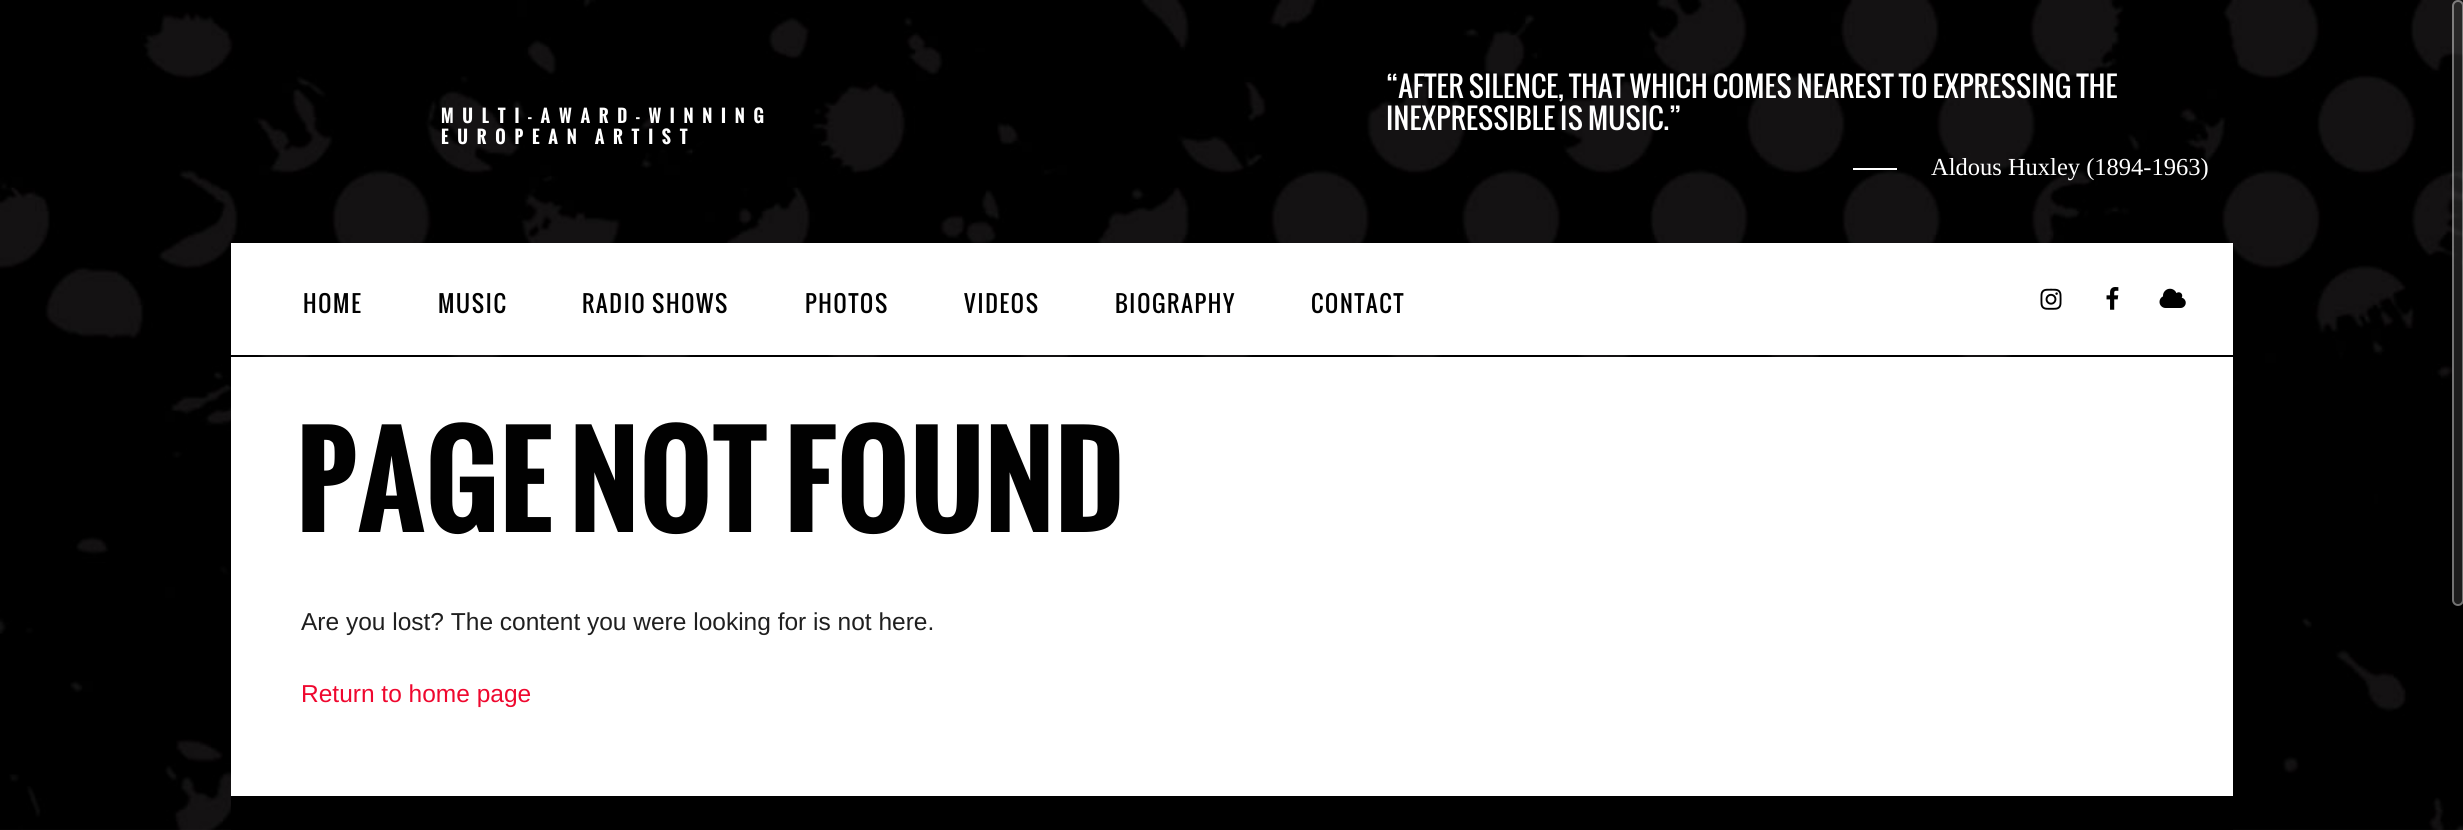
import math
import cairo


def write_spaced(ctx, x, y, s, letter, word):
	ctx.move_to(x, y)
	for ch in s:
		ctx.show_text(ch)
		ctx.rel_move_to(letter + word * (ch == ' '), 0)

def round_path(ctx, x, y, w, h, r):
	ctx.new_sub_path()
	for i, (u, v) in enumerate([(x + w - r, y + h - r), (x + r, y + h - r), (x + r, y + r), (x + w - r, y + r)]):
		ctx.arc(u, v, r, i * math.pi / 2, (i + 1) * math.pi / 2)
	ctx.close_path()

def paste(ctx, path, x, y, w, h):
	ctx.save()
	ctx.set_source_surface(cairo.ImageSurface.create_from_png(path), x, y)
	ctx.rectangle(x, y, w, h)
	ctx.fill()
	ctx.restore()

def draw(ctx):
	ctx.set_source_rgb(1, 1, 1)
	ctx.paint()
	paste(ctx, 'media/1.png', 0, 0, 2463, 830)
	ctx.select_font_face('Oswald', cairo.FONT_SLANT_NORMAL, cairo.FONT_WEIGHT_BOLD)
	ctx.set_font_size(17.5)
	ctx.set_source_rgb(1, 1, 1)
	write_spaced(ctx, 441, 123, 'MULTI-AWARD-WINNING', 8.75, 0)
	write_spaced(ctx, 441, 144, 'EUROPEAN ARTIST', 8.75, -2)
	ctx.select_font_face('Oswald')
	ctx.set_font_size(28)
	write_spaced(ctx, 1386, 98, '“AFTER SILENCE, THAT WHICH COMES NEAREST TO EXPRESSING THE', 0.18, 0)
	write_spaced(ctx, 1386, 130, 'INEXPRESSIBLE IS MUSIC.”', 0.18, 0)
	ctx.rectangle(1853, 168, 44, 2)
	ctx.fill()
	ctx.select_font_face('Liberation Serif')
	ctx.set_font_size(24.5)
	ctx.move_to(1931, 175)
	ctx.show_text('Aldous Huxley (1894-1963)')
	ctx.rectangle(231, 243, 2002, 112)
	ctx.fill()
	ctx.select_font_face('Oswald')
	ctx.set_font_size(22.75)
	ctx.set_source_rgb(0.004, 0.004, 0.004)
	for x, y, s in [
		(303, 313, 'HOME'),
		(438, 313, 'MUSIC'),
		(582, 313, 'RADIO SHOWS'),
		(805, 313, 'PHOTOS'),
		(964, 313, 'VIDEOS'),
		(1115, 313, 'BIOGRAPHY'),
		(1311, 313, 'CONTACT'),
	]:
		write_spaced(ctx, x, y, s, 1.75, 0)
	paste(ctx, 'media/2.png', 2040, 288, 22, 22)
	paste(ctx, 'media/3.png', 2106, 287, 13, 23)
	paste(ctx, 'media/4.png', 2159, 288, 27, 20)
	ctx.set_source_rgb(1, 1, 1)
	ctx.rectangle(231, 357, 2002, 439)
	ctx.fill()
	ctx.select_font_face('Oswald', cairo.FONT_SLANT_NORMAL, cairo.FONT_WEIGHT_BOLD)
	ctx.set_font_size(122.5)
	ctx.set_source_rgb(0.004, 0.004, 0.004)
	ctx.move_to(296, 532)
	ctx.show_text('PAGE NOT FOUND')
	ctx.select_font_face('Liberation Sans')
	ctx.set_font_size(24.5)
	ctx.set_source_rgb(0.122, 0.122, 0.122)
	ctx.move_to(301, 630)
	ctx.show_text('Are you lost? The content you were looking for is not here.')
	ctx.set_source_rgb(0.937, 0.031, 0.18)
	ctx.move_to(301, 702)
	ctx.show_text('Return to home page')
	ctx.set_source_rgb(0, 0, 0)
	ctx.rectangle(231, 796, 2002, 34)
	ctx.fill()
	ctx.set_source_rgba(0.259, 0.259, 0.259, 0.45)
	round_path(ctx, 2454, 2, 8, 602, 4)
	ctx.fill()
	round_path(ctx, 2453, 1, 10, 604, 5)
	ctx.set_source_rgba(1, 1, 1, 0.45)
	ctx.stroke()


surface = cairo.ImageSurface(cairo.FORMAT_RGB24, 2463, 830)
ctx = cairo.Context(surface)
options = cairo.FontOptions()
options.set_hint_metrics(cairo.HINT_METRICS_OFF)
options.set_hint_style(cairo.HINT_STYLE_NONE)
ctx.set_font_options(options)
ctx.set_miter_limit(4)
draw(ctx)
surface.write_to_png('image.png')
